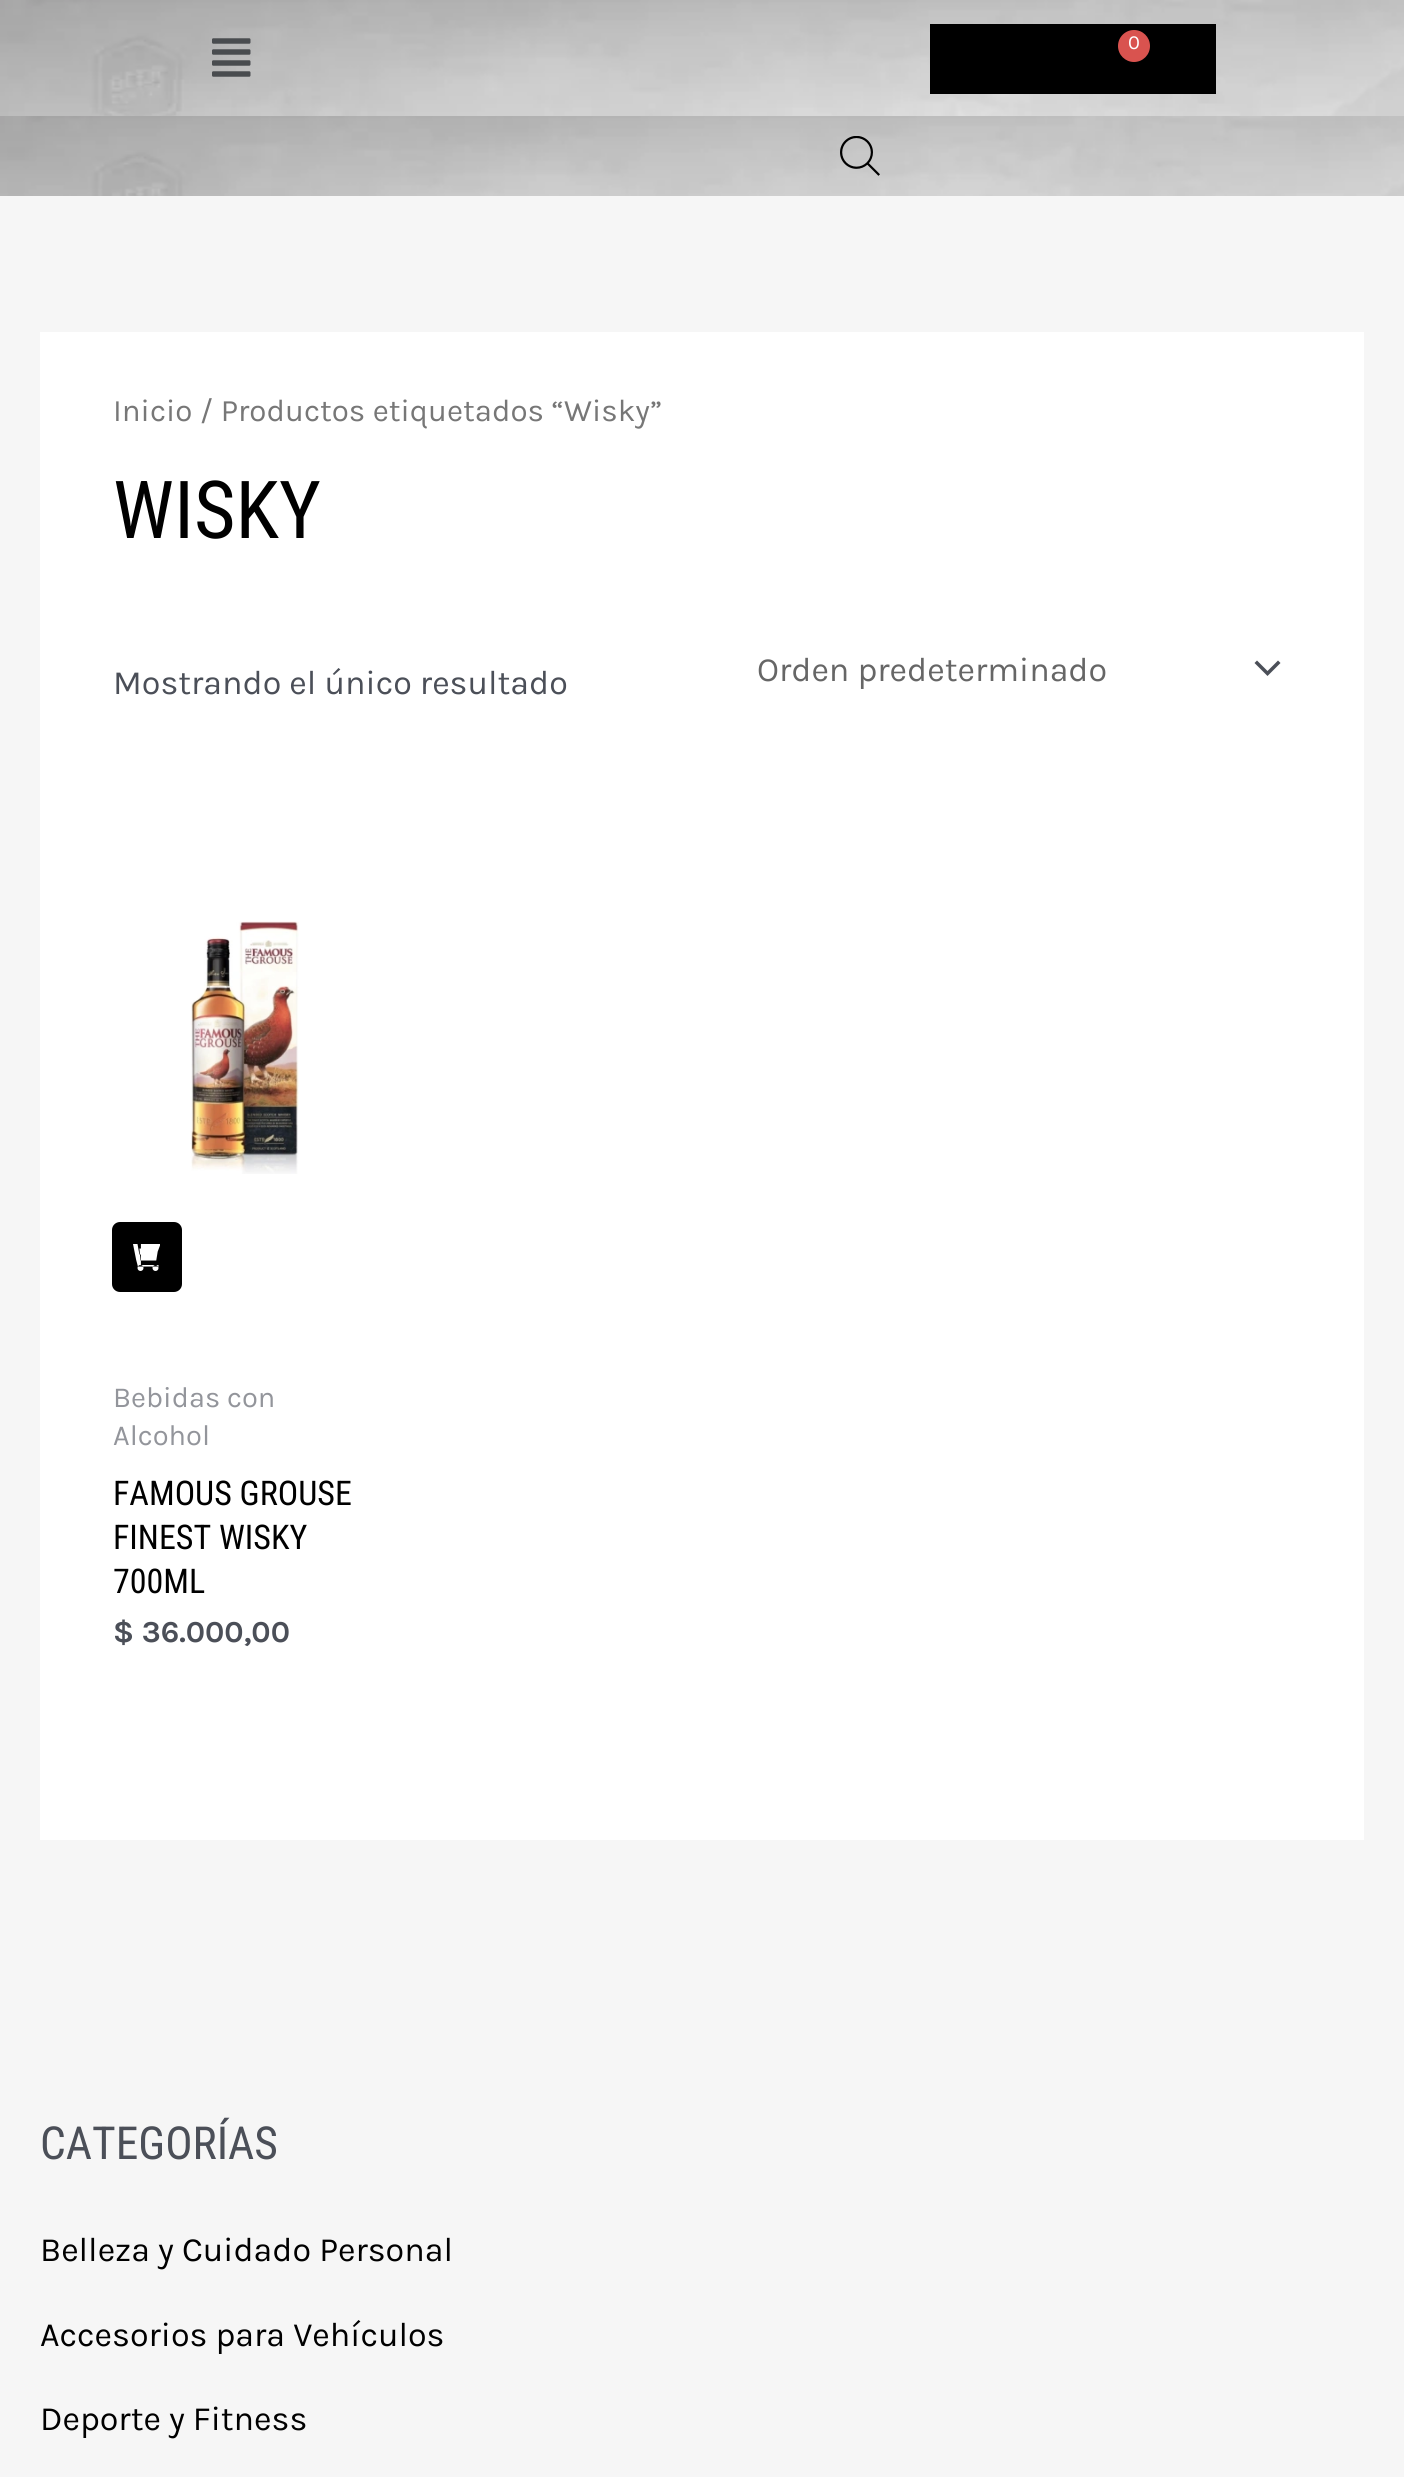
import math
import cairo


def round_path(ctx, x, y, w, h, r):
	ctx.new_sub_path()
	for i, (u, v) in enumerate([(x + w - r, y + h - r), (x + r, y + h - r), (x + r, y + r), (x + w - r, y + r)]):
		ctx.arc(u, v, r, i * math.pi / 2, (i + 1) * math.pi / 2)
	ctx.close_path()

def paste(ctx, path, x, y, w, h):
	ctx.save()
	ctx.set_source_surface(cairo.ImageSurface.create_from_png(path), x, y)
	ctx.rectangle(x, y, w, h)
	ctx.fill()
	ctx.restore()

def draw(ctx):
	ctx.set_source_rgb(0.961, 0.961, 0.961)
	ctx.paint()
	paste(ctx, 'media/1.png', 0, 0, 1404, 116)
	paste(ctx, 'media/2.png', 212, 38, 39, 39)
	ctx.set_source_rgb(0, 0, 0)
	ctx.rectangle(930, 24, 286, 70)
	ctx.fill()
	ctx.set_source_rgb(0.851, 0.325, 0.31)
	ctx.arc(1134, 46, 16, 0, 2 * math.pi)
	ctx.fill()
	ctx.select_font_face('Karla')
	ctx.set_font_size(20)
	ctx.set_source_rgb(1, 1, 1)
	ctx.move_to(1128, 49)
	ctx.show_text('0')
	paste(ctx, 'media/3.png', 0, 116, 1404, 80)
	paste(ctx, 'media/4.png', 840, 136, 40, 40)
	ctx.rectangle(40, 332, 1324, 1508)
	ctx.fill()
	ctx.set_font_size(31.25)
	ctx.set_source_rgb(0.467, 0.467, 0.467)
	ctx.move_to(113, 421)
	ctx.show_text('Inicio / Productos etiquetados “Wisky”')
	ctx.select_font_face('Roboto Condensed')
	ctx.set_font_size(80)
	ctx.set_source_rgb(0, 0, 0)
	ctx.move_to(113, 538)
	ctx.show_text('WISKY')
	ctx.select_font_face('Karla')
	ctx.set_font_size(34)
	ctx.set_source_rgb(0.294, 0.31, 0.345)
	ctx.move_to(113, 694)
	ctx.show_text('Mostrando el único resultado')
	ctx.new_path()
	ctx.move_to(1254.5, 663)
	ctx.line_to(1267.5, 676)
	ctx.line_to(1280.5, 663)
	ctx.line_to(1278, 660.5)
	ctx.line_to(1267.5, 671)
	ctx.line_to(1257, 660.5)
	ctx.close_path()
	ctx.fill()
	ctx.set_source_rgb(0.4, 0.4, 0.4)
	ctx.move_to(757, 681)
	ctx.show_text('Orden predeterminado')
	paste(ctx, 'media/5.png', 190, 921, 109, 253)
	ctx.set_source_rgb(0, 0, 0)
	round_path(ctx, 112, 1222, 70, 70, 8)
	ctx.fill()
	paste(ctx, 'media/6.png', 133, 1244, 27, 27)
	ctx.set_font_size(29)
	ctx.set_source_rgb(0.576, 0.584, 0.608)
	ctx.move_to(113, 1407)
	ctx.show_text('Bebidas con')
	ctx.move_to(113, 1445)
	ctx.show_text('Alcohol')
	ctx.select_font_face('Roboto Condensed')
	ctx.set_font_size(34)
	ctx.set_source_rgb(0, 0, 0)
	for x, y, s in [
		(113, 1505, 'FAMOUS GROUSE'),
		(113, 1549, 'FINEST WISKY'),
		(113, 1593, '700ML'),
	]:
		ctx.move_to(x, y)
		ctx.show_text(s)
	ctx.select_font_face('Karla', cairo.FONT_SLANT_NORMAL, cairo.FONT_WEIGHT_BOLD)
	ctx.set_font_size(30.5)
	ctx.set_source_rgb(0.294, 0.31, 0.345)
	ctx.move_to(113, 1642)
	ctx.show_text('$ 36.000,00')
	ctx.select_font_face('Roboto Condensed')
	ctx.set_font_size(45.5)
	ctx.move_to(40, 2159)
	ctx.show_text('CATEGORÍAS')
	ctx.select_font_face('Karla')
	ctx.set_font_size(34)
	ctx.set_source_rgb(0, 0, 0)
	for x, y, s in [
		(40, 2261, 'Belleza y Cuidado Personal'),
		(40, 2346, 'Accesorios para Vehículos'),
		(40, 2430, 'Deporte y Fitness'),
	]:
		ctx.move_to(x, y)
		ctx.show_text(s)


surface = cairo.ImageSurface(cairo.FORMAT_RGB24, 1404, 2477)
ctx = cairo.Context(surface)
options = cairo.FontOptions()
options.set_hint_metrics(cairo.HINT_METRICS_OFF)
options.set_hint_style(cairo.HINT_STYLE_NONE)
ctx.set_font_options(options)
ctx.set_miter_limit(4)
draw(ctx)
surface.write_to_png('image.png')
